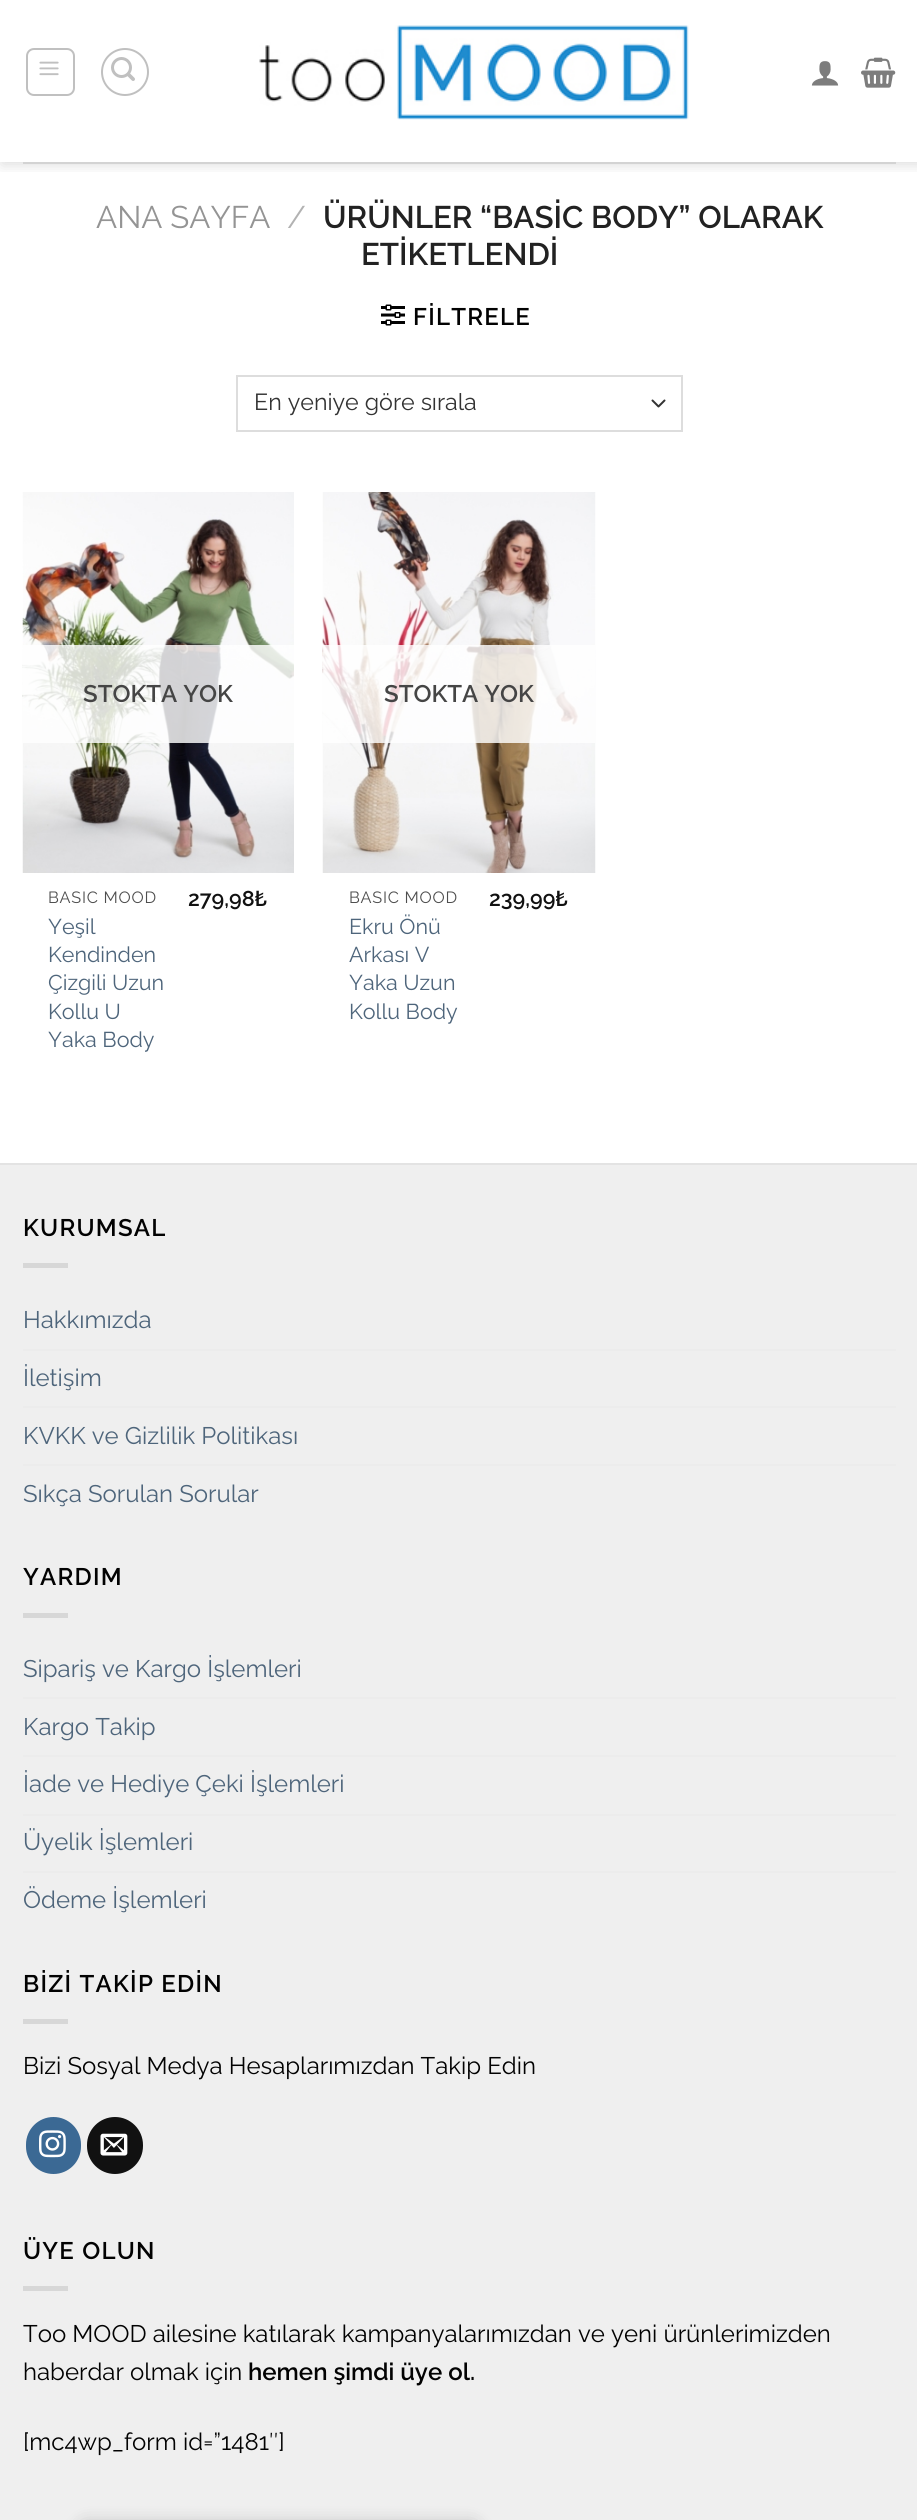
import math
import cairo


def write_spaced(ctx, x, y, s, letter, word):
	ctx.move_to(x, y)
	for ch in s:
		ctx.show_text(ch)
		ctx.rel_move_to(letter + word * (ch == ' '), 0)

def round_path(ctx, x, y, w, h, r):
	ctx.new_sub_path()
	for i, (u, v) in enumerate([(x + w - r, y + h - r), (x + r, y + h - r), (x + r, y + r), (x + w - r, y + r)]):
		ctx.arc(u, v, r, i * math.pi / 2, (i + 1) * math.pi / 2)
	ctx.close_path()

def blur_box(ctx, x, y, w, h, r, blur, alpha):
	ctx.push_group_with_content(cairo.CONTENT_ALPHA)
	ctx.set_operator(cairo.OPERATOR_SOURCE)
	for i in range(15, -16, -2):
		e = blur * i / 6
		if min(w, h) + 2 * e > 0:
			ctx.set_source_rgba(0, 0, 0, alpha * math.erfc((i - 1) / 8.5) / 2)
			round_path(ctx, x - e, y - e, w + 2 * e, h + 2 * e, max(0, min(r + e + blur * .6, min(w, h) / 2 + e)))
			ctx.fill()
	ctx.mask(ctx.pop_group())

def paste(ctx, path, x, y, w, h):
	ctx.save()
	ctx.set_source_surface(cairo.ImageSurface.create_from_png(path), x, y)
	ctx.rectangle(x, y, w, h)
	ctx.fill()
	ctx.restore()

def draw(ctx):
	ctx.set_source_rgb(1, 1, 1)
	ctx.paint()
	ctx.save()
	ctx.rectangle(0, 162, 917, 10)
	ctx.clip()
	ctx.set_source_rgb(0, 0, 0)
	blur_box(ctx, 2, -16, 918, 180, 0, 7.5, 0.15)
	ctx.restore()
	round_path(ctx, 27, 49, 47, 46, 7)
	ctx.set_source_rgb(0.753, 0.753, 0.753)
	ctx.stroke()
	paste(ctx, 'media/1.png', 39, 61, 20, 15)
	ctx.arc(125, 72, 23, 0, 2 * math.pi)
	ctx.stroke()
	paste(ctx, 'media/2.png', 111, 57, 24, 24)
	paste(ctx, 'media/3.png', 259, 25, 430, 95)
	paste(ctx, 'media/4.png', 811, 61, 28, 25)
	paste(ctx, 'media/5.png', 861, 57, 35, 31)
	ctx.set_source_rgb(0.827, 0.827, 0.827)
	ctx.rectangle(23, 162, 873, 2)
	ctx.fill()
	ctx.select_font_face('Raleway')
	ctx.set_font_size(31.25)
	ctx.set_source_rgb(0.58, 0.58, 0.58)
	ctx.move_to(96, 228)
	ctx.show_text('ANA SAYFA')
	ctx.set_source_rgb(0.698, 0.698, 0.698)
	ctx.move_to(287, 228)
	ctx.show_text('/')
	ctx.select_font_face('Raleway SemiBold')
	ctx.set_source_rgb(0.133, 0.133, 0.133)
	ctx.move_to(323, 228)
	ctx.show_text('ÜRÜNLER “BASİC BODY” OLARAK')
	ctx.move_to(361, 265)
	ctx.show_text('ETİKETLENDİ')
	paste(ctx, 'media/6.png', 381, 304, 24, 22)
	ctx.set_font_size(24)
	ctx.set_source_rgb(0.008, 0.008, 0.008)
	write_spaced(ctx, 413, 325, 'FİLTRELE', 1.25, 0)
	ctx.new_path()
	ctx.move_to(652.5, 400.5)
	ctx.line_to(658.5, 406.5)
	ctx.line_to(664.5, 400.5)
	ctx.set_source_rgb(0.2, 0.2, 0.2)
	ctx.set_line_cap(cairo.LINE_CAP_ROUND)
	ctx.set_line_join(cairo.LINE_JOIN_ROUND)
	ctx.stroke()
	ctx.rectangle(237, 376, 445, 55)
	ctx.set_source_rgb(0.867, 0.867, 0.867)
	ctx.set_line_cap(cairo.LINE_CAP_BUTT)
	ctx.set_line_join(cairo.LINE_JOIN_MITER)
	ctx.stroke()
	ctx.select_font_face('Raleway')
	ctx.set_font_size(23.25)
	ctx.set_source_rgb(0.2, 0.2, 0.2)
	ctx.move_to(254, 410)
	ctx.show_text('En yeniye göre sırala')
	paste(ctx, 'media/7.png', 22, 492, 272, 381)
	ctx.set_source_rgba(1, 1, 1, 0.81)
	ctx.rectangle(23, 645, 271, 98)
	ctx.fill()
	ctx.select_font_face('Raleway SemiBold')
	ctx.set_font_size(24)
	ctx.set_source_rgb(0.271, 0.271, 0.271)
	ctx.move_to(83, 702)
	ctx.show_text('STOKTA YOK')
	ctx.save()
	ctx.rectangle(48, 890, 117, 19)
	ctx.clip()
	ctx.select_font_face('Raleway')
	ctx.set_font_size(16.25)
	ctx.set_source_rgb(0.306, 0.306, 0.306)
	write_spaced(ctx, 48, 903, 'BASİC MOOD', 0.75, 0)
	ctx.restore()
	ctx.select_font_face('Raleway')
	ctx.set_font_size(21.5)
	ctx.set_source_rgb(0.306, 0.396, 0.482)
	for x, y, s in [
		(48, 934, 'Yeşil'),
		(48, 962, 'Kendinden'),
		(48, 990, 'Çizgili Uzun'),
		(48, 1019, 'Kollu U'),
		(48, 1047, 'Yaka Body'),
	]:
		ctx.move_to(x, y)
		ctx.show_text(s)
	ctx.select_font_face('Raleway SemiBold')
	ctx.set_source_rgb(0.067, 0.067, 0.067)
	ctx.move_to(188, 906)
	ctx.show_text('279,98₺')
	paste(ctx, 'media/8.png', 322, 492, 274, 381)
	ctx.set_source_rgba(1, 1, 1, 0.81)
	ctx.rectangle(323, 645, 272, 98)
	ctx.fill()
	ctx.set_font_size(24)
	ctx.set_source_rgb(0.271, 0.271, 0.271)
	ctx.move_to(384, 702)
	ctx.show_text('STOKTA YOK')
	ctx.save()
	ctx.rectangle(350, 890, 117, 19)
	ctx.clip()
	ctx.select_font_face('Raleway')
	ctx.set_font_size(16.25)
	ctx.set_source_rgb(0.306, 0.306, 0.306)
	write_spaced(ctx, 349, 903, 'BASİC MOOD', 0.75, 0)
	ctx.restore()
	ctx.select_font_face('Raleway')
	ctx.set_font_size(21.5)
	ctx.set_source_rgb(0.306, 0.396, 0.482)
	for x, y, s in [
		(349, 934, 'Ekru Önü'),
		(349, 962, 'Arkası V'),
		(349, 990, 'Yaka Uzun'),
		(349, 1019, 'Kollu Body'),
	]:
		ctx.move_to(x, y)
		ctx.show_text(s)
	ctx.select_font_face('Raleway SemiBold')
	ctx.set_source_rgb(0.067, 0.067, 0.067)
	ctx.move_to(489, 906)
	ctx.show_text('239,99₺')
	ctx.set_source_rgb(0.937, 0.937, 0.937)
	ctx.rectangle(0, 1165, 917, 1355)
	ctx.fill()
	ctx.set_source_rgb(0.89, 0.89, 0.89)
	ctx.rectangle(0, 1163, 917, 2)
	ctx.fill()
	ctx.set_font_size(24)
	ctx.set_source_rgb(0.008, 0.008, 0.008)
	write_spaced(ctx, 23, 1236, 'KURUMSAL', 1.25, 0)
	ctx.set_source_rgb(0.843, 0.843, 0.843)
	ctx.rectangle(23, 1263, 45, 5)
	ctx.fill()
	ctx.select_font_face('Raleway')
	ctx.set_source_rgb(0.306, 0.396, 0.482)
	ctx.move_to(23, 1328)
	ctx.show_text('Hakkımızda')
	ctx.set_source_rgb(0.925, 0.925, 0.925)
	ctx.rectangle(23, 1349, 873, 2)
	ctx.fill()
	ctx.set_source_rgb(0.306, 0.396, 0.482)
	ctx.move_to(23, 1386)
	ctx.show_text('İletişim')
	ctx.set_source_rgb(0.925, 0.925, 0.925)
	ctx.rectangle(23, 1406, 873, 2)
	ctx.fill()
	ctx.set_source_rgb(0.306, 0.396, 0.482)
	ctx.move_to(23, 1444)
	ctx.show_text('KVKK ve Gizlilik Politikası')
	ctx.set_source_rgb(0.925, 0.925, 0.925)
	ctx.rectangle(23, 1464, 873, 2)
	ctx.fill()
	ctx.set_source_rgb(0.306, 0.396, 0.482)
	ctx.move_to(23, 1502)
	ctx.show_text('Sıkça Sorulan Sorular')
	ctx.select_font_face('Raleway SemiBold')
	ctx.set_source_rgb(0.008, 0.008, 0.008)
	write_spaced(ctx, 23, 1585, 'YARDIM', 1.25, 0)
	ctx.set_source_rgb(0.843, 0.843, 0.843)
	ctx.rectangle(23, 1613, 45, 5)
	ctx.fill()
	ctx.select_font_face('Raleway')
	ctx.set_source_rgb(0.306, 0.396, 0.482)
	ctx.move_to(23, 1677)
	ctx.show_text('Sipariş ve Kargo İşlemleri')
	ctx.set_source_rgb(0.925, 0.925, 0.925)
	ctx.rectangle(23, 1697, 873, 2)
	ctx.fill()
	ctx.set_source_rgb(0.306, 0.396, 0.482)
	ctx.move_to(23, 1735)
	ctx.show_text('Kargo Takip')
	ctx.set_source_rgb(0.925, 0.925, 0.925)
	ctx.rectangle(23, 1755, 873, 2)
	ctx.fill()
	ctx.set_source_rgb(0.306, 0.396, 0.482)
	ctx.move_to(23, 1792)
	ctx.show_text('İade ve Hediye Çeki İşlemleri')
	ctx.set_source_rgb(0.925, 0.925, 0.925)
	ctx.rectangle(23, 1814, 873, 2)
	ctx.fill()
	ctx.set_source_rgb(0.306, 0.396, 0.482)
	ctx.move_to(23, 1850)
	ctx.show_text('Üyelik İşlemleri')
	ctx.set_source_rgb(0.925, 0.925, 0.925)
	ctx.rectangle(23, 1871, 873, 2)
	ctx.fill()
	ctx.set_source_rgb(0.306, 0.396, 0.482)
	ctx.move_to(23, 1908)
	ctx.show_text('Ödeme İşlemleri')
	ctx.select_font_face('Raleway SemiBold')
	ctx.set_source_rgb(0.008, 0.008, 0.008)
	write_spaced(ctx, 23, 1992, 'BİZİ TAKİP EDİN', 1.25, 0)
	ctx.set_source_rgb(0.843, 0.843, 0.843)
	ctx.rectangle(23, 2019, 45, 5)
	ctx.fill()
	ctx.select_font_face('Raleway')
	ctx.set_source_rgb(0.008, 0.008, 0.008)
	ctx.move_to(23, 2074)
	ctx.show_text('Bizi Sosyal Medya Hesaplarımızdan Takip Edin')
	ctx.set_source_rgb(0.231, 0.412, 0.58)
	round_path(ctx, 27, 2118, 53, 55, 26.5)
	ctx.fill_preserve()
	ctx.stroke()
	paste(ctx, 'media/9.png', 39, 2130, 27, 28)
	ctx.set_source_rgb(0.067, 0.067, 0.067)
	round_path(ctx, 88, 2118, 54, 55, 27)
	ctx.fill_preserve()
	ctx.stroke()
	paste(ctx, 'media/10.png', 100, 2133, 28, 23)
	ctx.select_font_face('Raleway SemiBold')
	ctx.set_source_rgb(0.008, 0.008, 0.008)
	write_spaced(ctx, 23, 2259, 'ÜYE OLUN', 1.25, 0)
	ctx.set_source_rgb(0.843, 0.843, 0.843)
	ctx.rectangle(23, 2286, 45, 5)
	ctx.fill()
	ctx.select_font_face('Raleway')
	ctx.set_source_rgb(0.008, 0.008, 0.008)
	ctx.move_to(23, 2342)
	ctx.show_text('Too MOOD ailesine katılarak kampanyalarımızdan ve yeni ürünlerimizden')
	ctx.move_to(23, 2380)
	ctx.show_text('haberdar olmak için')
	ctx.select_font_face('Raleway SemiBold')
	ctx.move_to(248, 2380)
	ctx.show_text('hemen şimdi üye ol.')
	ctx.select_font_face('Raleway')
	ctx.move_to(23, 2450)
	ctx.show_text('[mc4wp_form id=”1481″]')
	ctx.set_source_rgb(0, 0, 0)
	blur_box(ctx, 75, 2520, 408, 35, 12, 7.5, 0.15)


surface = cairo.ImageSurface(cairo.FORMAT_RGB24, 917, 2520)
ctx = cairo.Context(surface)
options = cairo.FontOptions()
options.set_hint_metrics(cairo.HINT_METRICS_OFF)
options.set_hint_style(cairo.HINT_STYLE_NONE)
ctx.set_font_options(options)
ctx.set_miter_limit(4)
draw(ctx)
surface.write_to_png('image.png')
